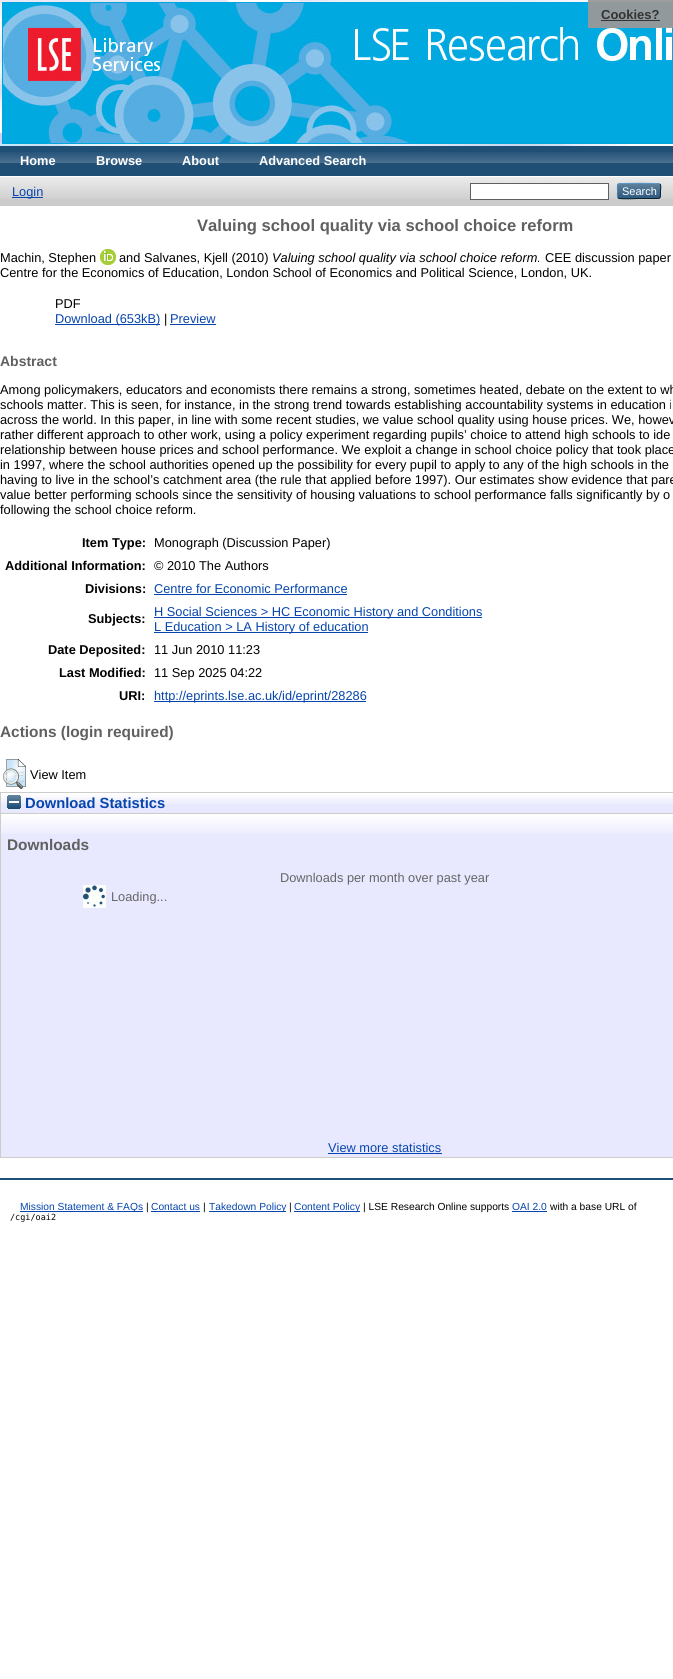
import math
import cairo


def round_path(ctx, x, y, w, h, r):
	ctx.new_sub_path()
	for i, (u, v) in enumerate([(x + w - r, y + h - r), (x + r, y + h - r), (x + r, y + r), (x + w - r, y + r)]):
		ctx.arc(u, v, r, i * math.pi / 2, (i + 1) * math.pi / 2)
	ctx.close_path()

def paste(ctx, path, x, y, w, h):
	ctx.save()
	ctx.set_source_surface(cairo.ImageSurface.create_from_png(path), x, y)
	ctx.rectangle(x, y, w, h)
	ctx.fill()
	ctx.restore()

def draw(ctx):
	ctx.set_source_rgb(1, 1, 1)
	ctx.paint()
	paste(ctx, 'media/1.png', 0, 0, 629, 146)
	ctx.set_source_rgb(0, 0.647, 0.875)
	ctx.rectangle(2, 2, 671, 142)
	ctx.fill()
	paste(ctx, 'media/2.png', 3, 3, 670, 140)
	ctx.set_source_rgba(0.6, 0.6, 0.6, 0.95)
	ctx.rectangle(588, 0, 85, 28)
	ctx.fill()
	ctx.select_font_face('Liberation Sans', cairo.FONT_SLANT_NORMAL, cairo.FONT_WEIGHT_BOLD)
	ctx.set_font_size(13)
	ctx.set_source_rgb(0.2, 0.2, 0.2)
	ctx.move_to(601, 19)
	ctx.show_text('Cookies?')
	ctx.rectangle(601, 20, 59, 1)
	ctx.fill()
	ctx.set_source_rgb(0.125, 0.31, 0.463)
	ctx.rectangle(0, 146, 673, 30)
	ctx.fill()
	paste(ctx, 'media/3.png', 0, 152, 673, 11)
	ctx.set_font_size(12.8)
	ctx.set_source_rgb(1, 1, 1)
	for x, y, s in [
		(20, 165, 'Home'),
		(96, 165, 'Browse'),
		(182, 165, 'About'),
		(259, 165, 'Advanced Search'),
	]:
		ctx.move_to(x, y)
		ctx.show_text(s)
	ctx.set_source_rgb(0.8, 0.8, 0.8)
	ctx.rectangle(0, 177, 673, 29)
	ctx.fill()
	paste(ctx, 'media/4.png', 0, 177, 673, 22)
	ctx.set_source_rgb(0.024, 0.271, 0.678)
	ctx.rectangle(12, 197, 31, 1)
	ctx.fill()
	ctx.select_font_face('Liberation Sans')
	ctx.move_to(12, 196)
	ctx.show_text('Login')
	ctx.set_source_rgb(1, 1, 1)
	ctx.rectangle(470.5, 183.5, 138, 16)
	ctx.fill_preserve()
	ctx.set_source_rgb(0.376, 0.376, 0.376)
	ctx.set_line_width(1)
	ctx.stroke()
	ctx.set_source_rgb(0.122, 0.31, 0.463)
	round_path(ctx, 617, 183, 44, 16, 3)
	ctx.fill()
	paste(ctx, 'media/5.png', 617, 183, 44, 16)
	ctx.new_path()
	ctx.move_to(618, 184)
	ctx.curve_to(619.5, 183, 658.5, 183, 660, 184)
	ctx.set_source_rgb(0.357, 0.592, 0.78)
	ctx.stroke()
	ctx.new_path()
	ctx.move_to(660, 184)
	ctx.curve_to(661.5, 186, 660.5, 189, 660.5, 191)
	ctx.curve_to(660.5, 199.5, 661, 198.5, 651.5, 198.5)
	ctx.line_to(639, 198.5)
	ctx.curve_to(636, 198.5, 620, 199.5, 618, 198)
	ctx.set_source_rgb(0.051, 0.129, 0.192)
	ctx.stroke()
	ctx.new_path()
	ctx.move_to(618, 198)
	ctx.curve_to(617, 196.5, 617.5, 192.5, 617.5, 191)
	ctx.curve_to(617.5, 189.5, 617, 185.5, 618, 184)
	ctx.set_source_rgb(0.322, 0.529, 0.702)
	ctx.stroke()
	ctx.set_font_size(11)
	ctx.set_source_rgb(1, 1, 1)
	ctx.move_to(622, 195)
	ctx.show_text('Search')
	ctx.select_font_face('Liberation Sans', cairo.FONT_SLANT_NORMAL, cairo.FONT_WEIGHT_BOLD)
	ctx.set_font_size(16.6)
	ctx.set_source_rgb(0.376, 0.376, 0.376)
	ctx.move_to(197, 231)
	ctx.show_text('Valuing school quality via school choice reform')
	ctx.select_font_face('Liberation Sans')
	ctx.set_font_size(12.8)
	ctx.set_source_rgb(0, 0, 0)
	ctx.move_to(0, 262)
	ctx.show_text('Machin, Stephen')
	paste(ctx, 'media/6.png', 100, 249, 16, 16)
	ctx.move_to(119, 262)
	ctx.show_text('and Salvanes, Kjell (2010)')
	ctx.select_font_face('Liberation Sans', cairo.FONT_SLANT_ITALIC)
	ctx.move_to(272, 262)
	ctx.show_text('Valuing school quality via school choice reform.')
	ctx.select_font_face('Liberation Sans')
	for x, y, s in [
		(545, 262, 'CEE discussion paper'),
		(0, 277, 'Centre for the Economics of Education, London School of Economics and Political Science, London, UK.'),
		(55, 308, 'PDF'),
	]:
		ctx.move_to(x, y)
		ctx.show_text(s)
	ctx.set_source_rgb(0.024, 0.271, 0.678)
	ctx.rectangle(55, 324, 105, 1)
	ctx.fill()
	ctx.move_to(55, 323)
	ctx.show_text('Download (653kB)')
	ctx.set_source_rgb(0, 0, 0)
	ctx.move_to(164, 323)
	ctx.show_text('|')
	ctx.set_source_rgb(0.024, 0.271, 0.678)
	ctx.move_to(170, 323)
	ctx.show_text('Preview')
	ctx.rectangle(170, 324, 46, 1)
	ctx.fill()
	ctx.select_font_face('Liberation Sans', cairo.FONT_SLANT_NORMAL, cairo.FONT_WEIGHT_BOLD)
	ctx.set_font_size(14)
	ctx.set_source_rgb(0.376, 0.376, 0.376)
	ctx.move_to(0, 366)
	ctx.show_text('Abstract')
	ctx.select_font_face('Liberation Sans')
	ctx.set_font_size(12.8)
	ctx.set_source_rgb(0, 0, 0)
	for x, y, s in [
		(0, 394, 'Among policymakers, educators and economists there remains a strong, sometimes heated, debate on the extent to wh'),
		(0, 409, 'schools matter. This is seen, for instance, in the strong trend towards establishing accountability systems in education i'),
		(0, 424, 'across the world. In this paper, in line with some recent studies, we value school quality using house prices. We, howev'),
		(0, 439, 'rather different approach to other work, using a policy experiment regarding pupils’ choice to attend high schools to ide'),
		(0, 454, 'relationship between house prices and school performance. We exploit a change in school choice policy that took place'),
		(0, 469, 'in 1997, where the school authorities opened up the possibility for every pupil to apply to any of the high schools in the'),
		(0, 484, 'having to live in the school’s catchment area (the rule that applied before 1997). Our estimates show evidence that pare'),
		(0, 499, 'value better performing schools since the sensitivity of housing valuations to school performance falls significantly by o'),
		(0, 514, 'following the school choice reform.'),
	]:
		ctx.move_to(x, y)
		ctx.show_text(s)
	ctx.select_font_face('Liberation Sans', cairo.FONT_SLANT_NORMAL, cairo.FONT_WEIGHT_BOLD)
	ctx.move_to(82, 547)
	ctx.show_text('Item Type:')
	ctx.select_font_face('Liberation Sans')
	ctx.move_to(154, 547)
	ctx.show_text('Monograph (Discussion Paper)')
	ctx.select_font_face('Liberation Sans', cairo.FONT_SLANT_NORMAL, cairo.FONT_WEIGHT_BOLD)
	ctx.move_to(5, 570)
	ctx.show_text('Additional Information:')
	ctx.select_font_face('Liberation Sans')
	ctx.move_to(154, 570)
	ctx.show_text('© 2010 The Authors')
	ctx.select_font_face('Liberation Sans', cairo.FONT_SLANT_NORMAL, cairo.FONT_WEIGHT_BOLD)
	ctx.move_to(85, 593)
	ctx.show_text('Divisions:')
	ctx.select_font_face('Liberation Sans')
	ctx.set_source_rgb(0.024, 0.271, 0.678)
	ctx.move_to(154, 593)
	ctx.show_text('Centre for Economic Performance')
	ctx.rectangle(154, 594, 193, 1)
	ctx.fill()
	ctx.select_font_face('Liberation Sans', cairo.FONT_SLANT_NORMAL, cairo.FONT_WEIGHT_BOLD)
	ctx.set_source_rgb(0, 0, 0)
	ctx.move_to(88, 623)
	ctx.show_text('Subjects:')
	ctx.set_source_rgb(0.024, 0.271, 0.678)
	ctx.rectangle(154, 617, 328, 1)
	ctx.fill()
	ctx.select_font_face('Liberation Sans')
	ctx.move_to(154, 616)
	ctx.show_text('H Social Sciences > HC Economic History and Conditions')
	ctx.rectangle(154, 632, 214, 1)
	ctx.fill()
	ctx.move_to(154, 631)
	ctx.show_text('L Education > LA History of education')
	ctx.select_font_face('Liberation Sans', cairo.FONT_SLANT_NORMAL, cairo.FONT_WEIGHT_BOLD)
	ctx.set_source_rgb(0, 0, 0)
	ctx.move_to(48, 654)
	ctx.show_text('Date Deposited:')
	ctx.select_font_face('Liberation Sans')
	ctx.move_to(154, 654)
	ctx.show_text('11 Jun 2010 11:23')
	ctx.select_font_face('Liberation Sans', cairo.FONT_SLANT_NORMAL, cairo.FONT_WEIGHT_BOLD)
	ctx.move_to(59, 677)
	ctx.show_text('Last Modified:')
	ctx.select_font_face('Liberation Sans')
	ctx.move_to(154, 677)
	ctx.show_text('11 Sep 2025 04:22')
	ctx.select_font_face('Liberation Sans', cairo.FONT_SLANT_NORMAL, cairo.FONT_WEIGHT_BOLD)
	ctx.move_to(119, 700)
	ctx.show_text('URI:')
	ctx.set_source_rgb(0.024, 0.271, 0.678)
	ctx.rectangle(154, 701, 212, 1)
	ctx.fill()
	ctx.select_font_face('Liberation Sans')
	ctx.move_to(154, 700)
	ctx.show_text('http://eprints.lse.ac.uk/id/eprint/28286')
	ctx.select_font_face('Liberation Sans', cairo.FONT_SLANT_NORMAL, cairo.FONT_WEIGHT_BOLD)
	ctx.set_font_size(15.4)
	ctx.set_source_rgb(0.376, 0.376, 0.376)
	ctx.move_to(0, 737)
	ctx.show_text('Actions (login required)')
	paste(ctx, 'media/7.png', 3, 759, 23, 30)
	ctx.select_font_face('Liberation Sans')
	ctx.set_font_size(12.8)
	ctx.set_source_rgb(0, 0, 0)
	ctx.move_to(30, 779)
	ctx.show_text('View Item')
	ctx.set_source_rgb(0.91, 0.91, 1)
	ctx.rectangle(1, 794, 672, 19)
	ctx.fill()
	paste(ctx, 'media/8.png', 1, 793, 672, 11)
	ctx.rectangle(0.5, 792.5, 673, 21)
	ctx.set_source_rgb(0.8, 0.8, 0.8)
	ctx.stroke()
	paste(ctx, 'media/9.png', 7, 795, 14, 14)
	ctx.select_font_face('Liberation Sans', cairo.FONT_SLANT_NORMAL, cairo.FONT_WEIGHT_BOLD)
	ctx.set_font_size(14.75)
	ctx.set_source_rgb(0.024, 0.271, 0.678)
	ctx.move_to(25, 808)
	ctx.show_text('Download Statistics')
	ctx.set_source_rgb(0.91, 0.91, 1)
	ctx.rectangle(1, 815, 672, 342)
	ctx.fill()
	paste(ctx, 'media/10.png', 1, 814, 672, 20)
	ctx.set_source_rgb(0.8, 0.8, 0.8)
	ctx.rectangle(0, 1157, 673, 1)
	ctx.fill()
	ctx.rectangle(0, 814, 1, 344)
	ctx.fill()
	ctx.set_font_size(15.4)
	ctx.set_source_rgb(0.376, 0.376, 0.376)
	ctx.move_to(7, 850)
	ctx.show_text('Downloads')
	ctx.select_font_face('Liberation Sans')
	ctx.set_font_size(12.8)
	ctx.set_source_rgb(0.4, 0.4, 0.4)
	ctx.move_to(280, 882)
	ctx.show_text('Downloads per month over past year')
	paste(ctx, 'media/11.png', 83, 885, 23, 23)
	ctx.move_to(111, 901)
	ctx.show_text('Loading...')
	ctx.set_source_rgb(0.024, 0.271, 0.678)
	ctx.move_to(328, 1152)
	ctx.show_text('View more statistics')
	ctx.rectangle(328, 1153, 114, 1)
	ctx.fill()
	ctx.set_source_rgb(0.125, 0.31, 0.463)
	ctx.rectangle(0, 1178, 673, 2)
	ctx.fill()
	ctx.set_source_rgb(0.024, 0.271, 0.678)
	ctx.rectangle(20, 1211, 123, 1)
	ctx.fill()
	ctx.set_font_size(10.25)
	ctx.move_to(20, 1210)
	ctx.show_text('Mission Statement & FAQs')
	ctx.set_source_rgb(0, 0, 0)
	ctx.move_to(146, 1210)
	ctx.show_text('|')
	ctx.set_source_rgb(0.024, 0.271, 0.678)
	ctx.move_to(151, 1210)
	ctx.show_text('Contact us')
	ctx.rectangle(151, 1211, 49, 1)
	ctx.fill()
	ctx.set_source_rgb(0, 0, 0)
	ctx.move_to(203, 1210)
	ctx.show_text('|')
	ctx.set_source_rgb(0.024, 0.271, 0.678)
	ctx.rectangle(209, 1211, 77, 1)
	ctx.fill()
	ctx.move_to(209, 1210)
	ctx.show_text('Takedown Policy')
	ctx.set_source_rgb(0, 0, 0)
	ctx.move_to(289, 1210)
	ctx.show_text('|')
	ctx.set_source_rgb(0.024, 0.271, 0.678)
	ctx.rectangle(294, 1211, 66, 1)
	ctx.fill()
	ctx.move_to(294, 1210)
	ctx.show_text('Content Policy')
	ctx.set_source_rgb(0, 0, 0)
	ctx.move_to(363, 1210)
	ctx.show_text('| LSE Research Online supports')
	ctx.set_source_rgb(0.024, 0.271, 0.678)
	ctx.move_to(512, 1210)
	ctx.show_text('OAI 2.0')
	ctx.rectangle(512, 1211, 35, 1)
	ctx.fill()
	ctx.set_source_rgb(0, 0, 0)
	ctx.move_to(550, 1210)
	ctx.show_text('with a base URL of')
	ctx.select_font_face('DejaVu Sans Mono')
	ctx.set_font_size(8.5)
	ctx.move_to(10, 1220)
	ctx.show_text('/cgi/oai2')


surface = cairo.ImageSurface(cairo.FORMAT_RGB24, 673, 1679)
ctx = cairo.Context(surface)
options = cairo.FontOptions()
options.set_hint_metrics(cairo.HINT_METRICS_OFF)
options.set_hint_style(cairo.HINT_STYLE_NONE)
ctx.set_font_options(options)
ctx.set_miter_limit(4)
draw(ctx)
surface.write_to_png('image.png')
